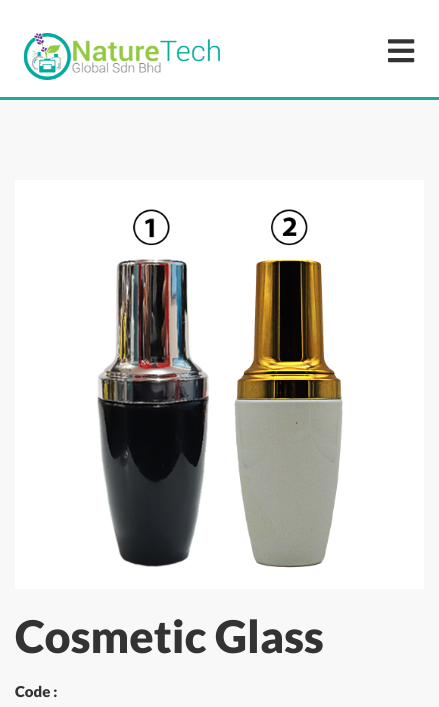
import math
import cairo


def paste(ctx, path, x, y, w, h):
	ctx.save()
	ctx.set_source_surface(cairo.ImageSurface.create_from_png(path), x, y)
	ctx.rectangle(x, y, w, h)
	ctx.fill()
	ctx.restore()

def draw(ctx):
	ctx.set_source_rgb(0.969, 0.969, 0.969)
	ctx.paint()
	ctx.set_source_rgb(1, 1, 1)
	ctx.rectangle(0, 0, 439, 97)
	ctx.fill()
	ctx.set_source_rgb(0.09, 0.667, 0.616)
	ctx.rectangle(0, 97, 439, 3)
	ctx.fill()
	paste(ctx, 'media/1.png', 23, 33, 197, 47)
	paste(ctx, 'media/2.png', 388, 39, 27, 24)
	paste(ctx, 'media/3.png', 15, 180, 409, 409)
	ctx.select_font_face('Lato Black')
	ctx.set_font_size(45)
	ctx.set_source_rgb(0.2, 0.2, 0.2)
	ctx.move_to(15, 653)
	ctx.show_text('Cosmetic Glass')
	ctx.set_font_size(15)
	ctx.move_to(15, 697)
	ctx.show_text('Code :')


surface = cairo.ImageSurface(cairo.FORMAT_RGB24, 439, 707)
ctx = cairo.Context(surface)
options = cairo.FontOptions()
options.set_hint_metrics(cairo.HINT_METRICS_OFF)
options.set_hint_style(cairo.HINT_STYLE_NONE)
ctx.set_font_options(options)
ctx.set_miter_limit(4)
draw(ctx)
surface.write_to_png('image.png')
